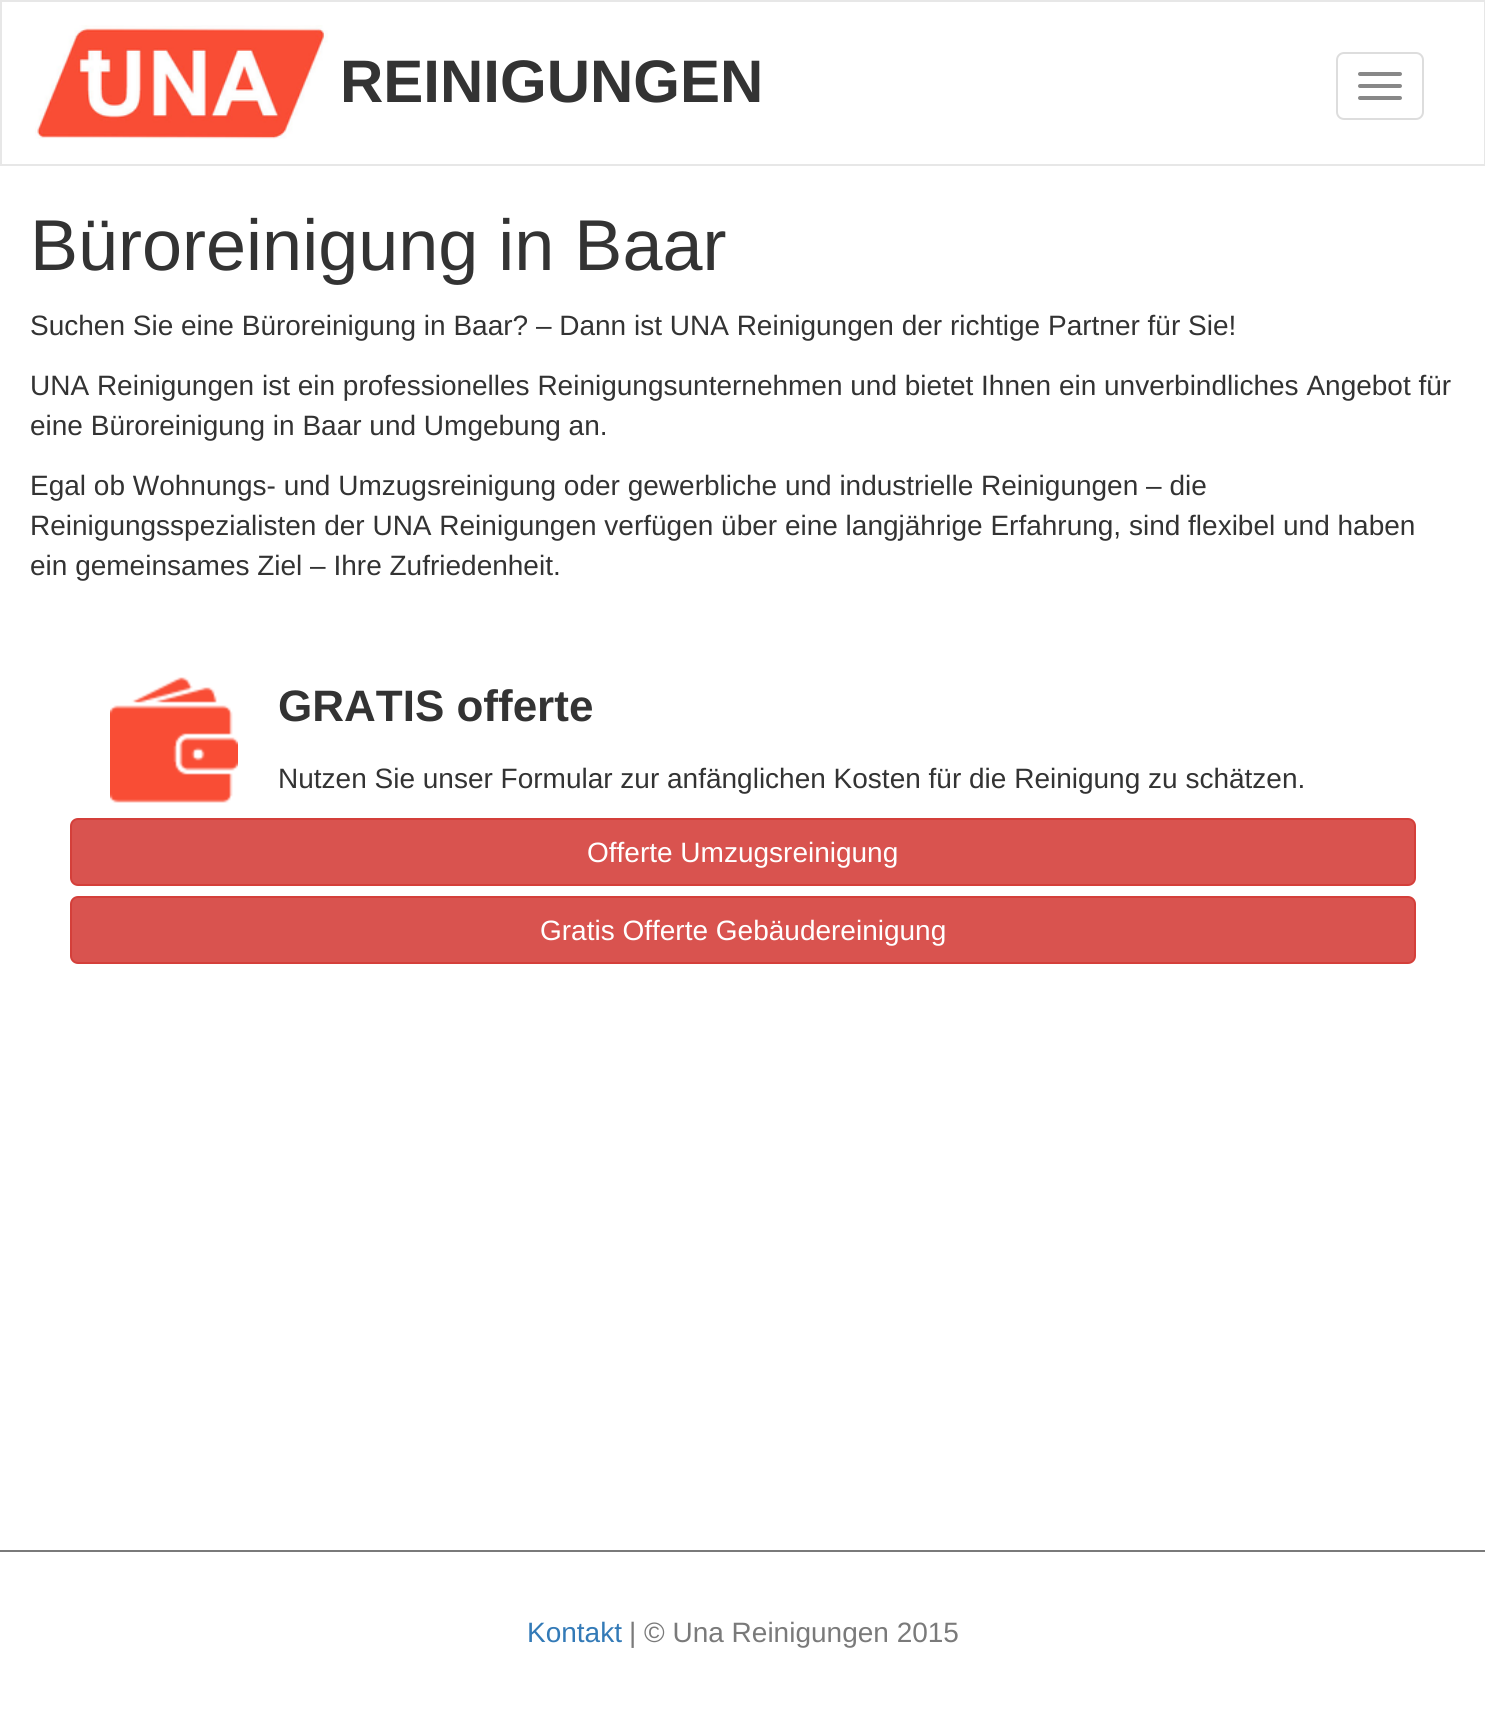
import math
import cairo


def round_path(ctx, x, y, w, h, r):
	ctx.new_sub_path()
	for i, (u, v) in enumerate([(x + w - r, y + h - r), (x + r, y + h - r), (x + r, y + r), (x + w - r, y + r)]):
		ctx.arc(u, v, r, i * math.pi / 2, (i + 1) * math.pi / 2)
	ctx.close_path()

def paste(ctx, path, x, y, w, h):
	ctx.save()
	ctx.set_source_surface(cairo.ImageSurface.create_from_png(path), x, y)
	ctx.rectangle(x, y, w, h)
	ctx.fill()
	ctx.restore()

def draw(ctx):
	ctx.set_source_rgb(1, 1, 1)
	ctx.paint()
	ctx.rectangle(1, 1, 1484, 164)
	ctx.set_source_rgb(0.906, 0.906, 0.906)
	ctx.stroke()
	paste(ctx, 'media/1.png', 35, 25, 293, 114)
	ctx.select_font_face('Liberation Sans', cairo.FONT_SLANT_NORMAL, cairo.FONT_WEIGHT_BOLD)
	ctx.set_font_size(60)
	ctx.set_source_rgb(0.2, 0.2, 0.2)
	ctx.move_to(340, 102)
	ctx.show_text('REINIGUNGEN')
	round_path(ctx, 1337, 53, 86, 66, 7)
	ctx.set_source_rgb(0.867, 0.867, 0.867)
	ctx.stroke()
	ctx.set_source_rgb(0.533, 0.533, 0.533)
	round_path(ctx, 1358, 72, 44, 4, 2)
	ctx.fill()
	round_path(ctx, 1358, 84, 44, 4, 2)
	ctx.fill()
	round_path(ctx, 1358, 96, 44, 4, 2)
	ctx.fill()
	ctx.select_font_face('Liberation Sans')
	ctx.set_font_size(72)
	ctx.set_source_rgb(0.2, 0.2, 0.2)
	ctx.move_to(30, 270)
	ctx.show_text('Büroreinigung in Baar')
	ctx.set_font_size(28)
	for x, y, s in [
		(30, 335, 'Suchen Sie eine Büroreinigung in Baar? – Dann ist UNA Reinigungen der richtige Partner für Sie!'),
		(30, 395, 'UNA Reinigungen ist ein professionelles Reinigungsunternehmen und bietet Ihnen ein unverbindliches Angebot für'),
		(30, 435, 'eine Büroreinigung in Baar und Umgebung an.'),
		(30, 495, 'Egal ob Wohnungs- und Umzugsreinigung oder gewerbliche und industrielle Reinigungen – die'),
		(30, 535, 'Reinigungsspezialisten der UNA Reinigungen verfügen über eine langjährige Erfahrung, sind flexibel und haben'),
		(30, 575, 'ein gemeinsames Ziel – Ihre Zufriedenheit.'),
	]:
		ctx.move_to(x, y)
		ctx.show_text(s)
	paste(ctx, 'media/2.png', 110, 677, 128, 126)
	ctx.select_font_face('Liberation Sans', cairo.FONT_SLANT_NORMAL, cairo.FONT_WEIGHT_BOLD)
	ctx.set_font_size(44)
	ctx.move_to(278, 721)
	ctx.show_text('GRATIS offerte')
	ctx.select_font_face('Liberation Sans')
	ctx.set_font_size(28)
	ctx.move_to(278, 788)
	ctx.show_text('Nutzen Sie unser Formular zur anfänglichen Kosten für die Reinigung zu schätzen.')
	ctx.set_source_rgb(0.851, 0.325, 0.31)
	round_path(ctx, 71, 819, 1344, 66, 7)
	ctx.fill_preserve()
	ctx.set_source_rgb(0.831, 0.247, 0.227)
	ctx.stroke()
	ctx.set_source_rgb(1, 1, 1)
	ctx.move_to(587, 862)
	ctx.show_text('Offerte Umzugsreinigung')
	ctx.set_source_rgb(0.851, 0.325, 0.31)
	round_path(ctx, 71, 897, 1344, 66, 7)
	ctx.fill_preserve()
	ctx.set_source_rgb(0.831, 0.247, 0.227)
	ctx.stroke()
	ctx.set_source_rgb(1, 1, 1)
	ctx.move_to(540, 940)
	ctx.show_text('Gratis Offerte Gebäudereinigung')
	ctx.set_source_rgb(0.478, 0.478, 0.478)
	ctx.rectangle(0, 1550, 1485, 2)
	ctx.fill()
	ctx.set_source_rgb(0.2, 0.478, 0.718)
	ctx.move_to(527, 1642)
	ctx.show_text('Kontakt')
	ctx.set_source_rgb(0.478, 0.478, 0.478)
	ctx.move_to(629, 1642)
	ctx.show_text('| © Una Reinigungen 2015')


surface = cairo.ImageSurface(cairo.FORMAT_RGB24, 1485, 1710)
ctx = cairo.Context(surface)
options = cairo.FontOptions()
options.set_hint_metrics(cairo.HINT_METRICS_OFF)
options.set_hint_style(cairo.HINT_STYLE_NONE)
ctx.set_font_options(options)
ctx.set_miter_limit(4)
draw(ctx)
surface.write_to_png('image.png')
